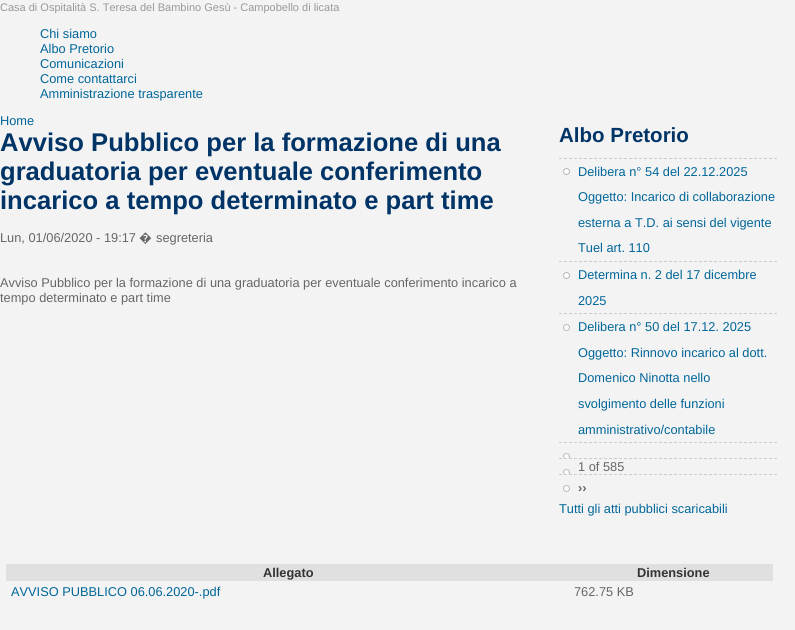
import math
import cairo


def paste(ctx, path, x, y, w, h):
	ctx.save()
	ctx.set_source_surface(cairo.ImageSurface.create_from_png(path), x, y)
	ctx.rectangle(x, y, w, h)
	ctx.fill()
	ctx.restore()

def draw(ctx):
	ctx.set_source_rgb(0.953, 0.953, 0.953)
	ctx.paint()
	ctx.select_font_face('Liberation Sans')
	ctx.set_font_size(11)
	ctx.set_source_rgb(0.6, 0.6, 0.6)
	ctx.move_to(0, 11)
	ctx.show_text('Casa di Ospitalità S. Teresa del Bambino Gesù - Campobello di licata')
	ctx.set_font_size(12.8)
	ctx.set_source_rgb(0, 0.4, 0.6)
	for x, y, s in [
		(40, 38, 'Chi siamo'),
		(40, 53, 'Albo Pretorio'),
		(40, 68, 'Comunicazioni'),
		(40, 83, 'Come contattarci'),
		(40, 98, 'Amministrazione trasparente'),
		(0, 125, 'Home'),
	]:
		ctx.move_to(x, y)
		ctx.show_text(s)
	ctx.select_font_face('Liberation Sans', cairo.FONT_SLANT_NORMAL, cairo.FONT_WEIGHT_BOLD)
	ctx.set_font_size(25.6)
	ctx.set_source_rgb(0, 0.2, 0.4)
	for x, y, s in [
		(0, 151, 'Avviso Pubblico per la formazione di una'),
		(0, 180, 'graduatoria per eventuale conferimento'),
		(0, 209, 'incarico a tempo determinato e part time'),
	]:
		ctx.move_to(x, y)
		ctx.show_text(s)
	ctx.select_font_face('Liberation Sans')
	ctx.set_font_size(12.8)
	ctx.set_source_rgb(0.4, 0.4, 0.4)
	ctx.move_to(0, 242)
	ctx.show_text('Lun, 01/06/2020 - 19:17')
	ctx.select_font_face('Noto Sans')
	ctx.move_to(139, 242)
	ctx.show_text('�')
	ctx.select_font_face('Liberation Sans')
	for x, y, s in [
		(156, 242, 'segreteria'),
		(0, 287, 'Avviso Pubblico per la formazione di una graduatoria per eventuale conferimento incarico a'),
		(0, 302, 'tempo determinato e part time'),
	]:
		ctx.move_to(x, y)
		ctx.show_text(s)
	ctx.set_source_rgb(0.878, 0.878, 0.878)
	ctx.rectangle(6, 564, 767, 17)
	ctx.fill()
	ctx.select_font_face('Liberation Sans', cairo.FONT_SLANT_NORMAL, cairo.FONT_WEIGHT_BOLD)
	ctx.set_source_rgb(0.2, 0.2, 0.2)
	ctx.move_to(263, 577)
	ctx.show_text('Allegato')
	ctx.move_to(637, 577)
	ctx.show_text('Dimensione')
	ctx.select_font_face('Liberation Sans')
	ctx.set_source_rgb(0, 0.4, 0.6)
	ctx.move_to(11, 596)
	ctx.show_text('AVVISO PUBBLICO 06.06.2020-.pdf')
	ctx.set_source_rgb(0.4, 0.4, 0.4)
	ctx.move_to(574, 596)
	ctx.show_text('762.75 KB')
	ctx.select_font_face('Liberation Sans', cairo.FONT_SLANT_NORMAL, cairo.FONT_WEIGHT_BOLD)
	ctx.set_font_size(20.5)
	ctx.set_source_rgb(0, 0.2, 0.4)
	ctx.move_to(559, 142)
	ctx.show_text('Albo Pretorio')
	paste(ctx, 'media/1.png', 563, 168, 7, 7)
	ctx.new_path()
	ctx.move_to(559, 158.5)
	ctx.line_to(777, 158.5)
	ctx.set_source_rgb(0.8, 0.8, 0.8)
	ctx.set_line_width(1)
	ctx.set_dash([3, 2])
	ctx.stroke()
	ctx.select_font_face('Liberation Sans')
	ctx.set_font_size(12.8)
	ctx.set_source_rgb(0, 0.4, 0.6)
	for x, y, s in [
		(578, 176, 'Delibera n° 54 del 22.12.2025'),
		(578, 201, 'Oggetto: Incarico di collaborazione'),
		(578, 227, 'esterna a T.D. ai sensi del vigente'),
		(578, 252, 'Tuel art. 110'),
	]:
		ctx.move_to(x, y)
		ctx.show_text(s)
	paste(ctx, 'media/1.png', 563, 272, 7, 7)
	ctx.new_path()
	ctx.move_to(559, 261.5)
	ctx.line_to(777, 261.5)
	ctx.set_source_rgb(0.8, 0.8, 0.8)
	ctx.stroke()
	ctx.set_source_rgb(0, 0.4, 0.6)
	ctx.move_to(578, 279)
	ctx.show_text('Determina n. 2 del 17 dicembre')
	ctx.move_to(578, 305)
	ctx.show_text('2025')
	paste(ctx, 'media/1.png', 563, 324, 7, 7)
	ctx.new_path()
	ctx.move_to(559, 313.5)
	ctx.line_to(777, 313.5)
	ctx.set_source_rgb(0.8, 0.8, 0.8)
	ctx.stroke()
	ctx.set_source_rgb(0, 0.4, 0.6)
	for x, y, s in [
		(578, 331, 'Delibera n° 50 del 17.12. 2025'),
		(578, 357, 'Oggetto: Rinnovo incarico al dott.'),
		(578, 382, 'Domenico Ninotta nello'),
		(578, 408, 'svolgimento delle funzioni'),
		(578, 434, 'amministrativo/contabile'),
	]:
		ctx.move_to(x, y)
		ctx.show_text(s)
	paste(ctx, 'media/2.png', 563, 453, 7, 5)
	ctx.new_path()
	ctx.move_to(559, 442.5)
	ctx.line_to(777, 442.5)
	ctx.set_source_rgb(0.8, 0.8, 0.8)
	ctx.stroke()
	paste(ctx, 'media/2.png', 563, 469, 7, 5)
	ctx.new_path()
	ctx.move_to(559, 458.5)
	ctx.line_to(777, 458.5)
	ctx.stroke()
	ctx.set_source_rgb(0.4, 0.4, 0.4)
	ctx.move_to(578, 471)
	ctx.show_text('1 of 585')
	paste(ctx, 'media/1.png', 563, 485, 7, 7)
	ctx.new_path()
	ctx.move_to(559, 474.5)
	ctx.line_to(777, 474.5)
	ctx.set_source_rgb(0.8, 0.8, 0.8)
	ctx.stroke()
	ctx.select_font_face('Liberation Sans', cairo.FONT_SLANT_NORMAL, cairo.FONT_WEIGHT_BOLD)
	ctx.set_source_rgb(0.4, 0.4, 0.4)
	ctx.move_to(578, 492)
	ctx.show_text('››')
	ctx.select_font_face('Liberation Sans')
	ctx.set_source_rgb(0, 0.4, 0.6)
	ctx.move_to(559, 513)
	ctx.show_text('Tutti gli atti pubblici scaricabili')


surface = cairo.ImageSurface(cairo.FORMAT_RGB24, 795, 630)
ctx = cairo.Context(surface)
options = cairo.FontOptions()
options.set_hint_metrics(cairo.HINT_METRICS_OFF)
options.set_hint_style(cairo.HINT_STYLE_NONE)
ctx.set_font_options(options)
ctx.set_miter_limit(4)
draw(ctx)
surface.write_to_png('image.png')
